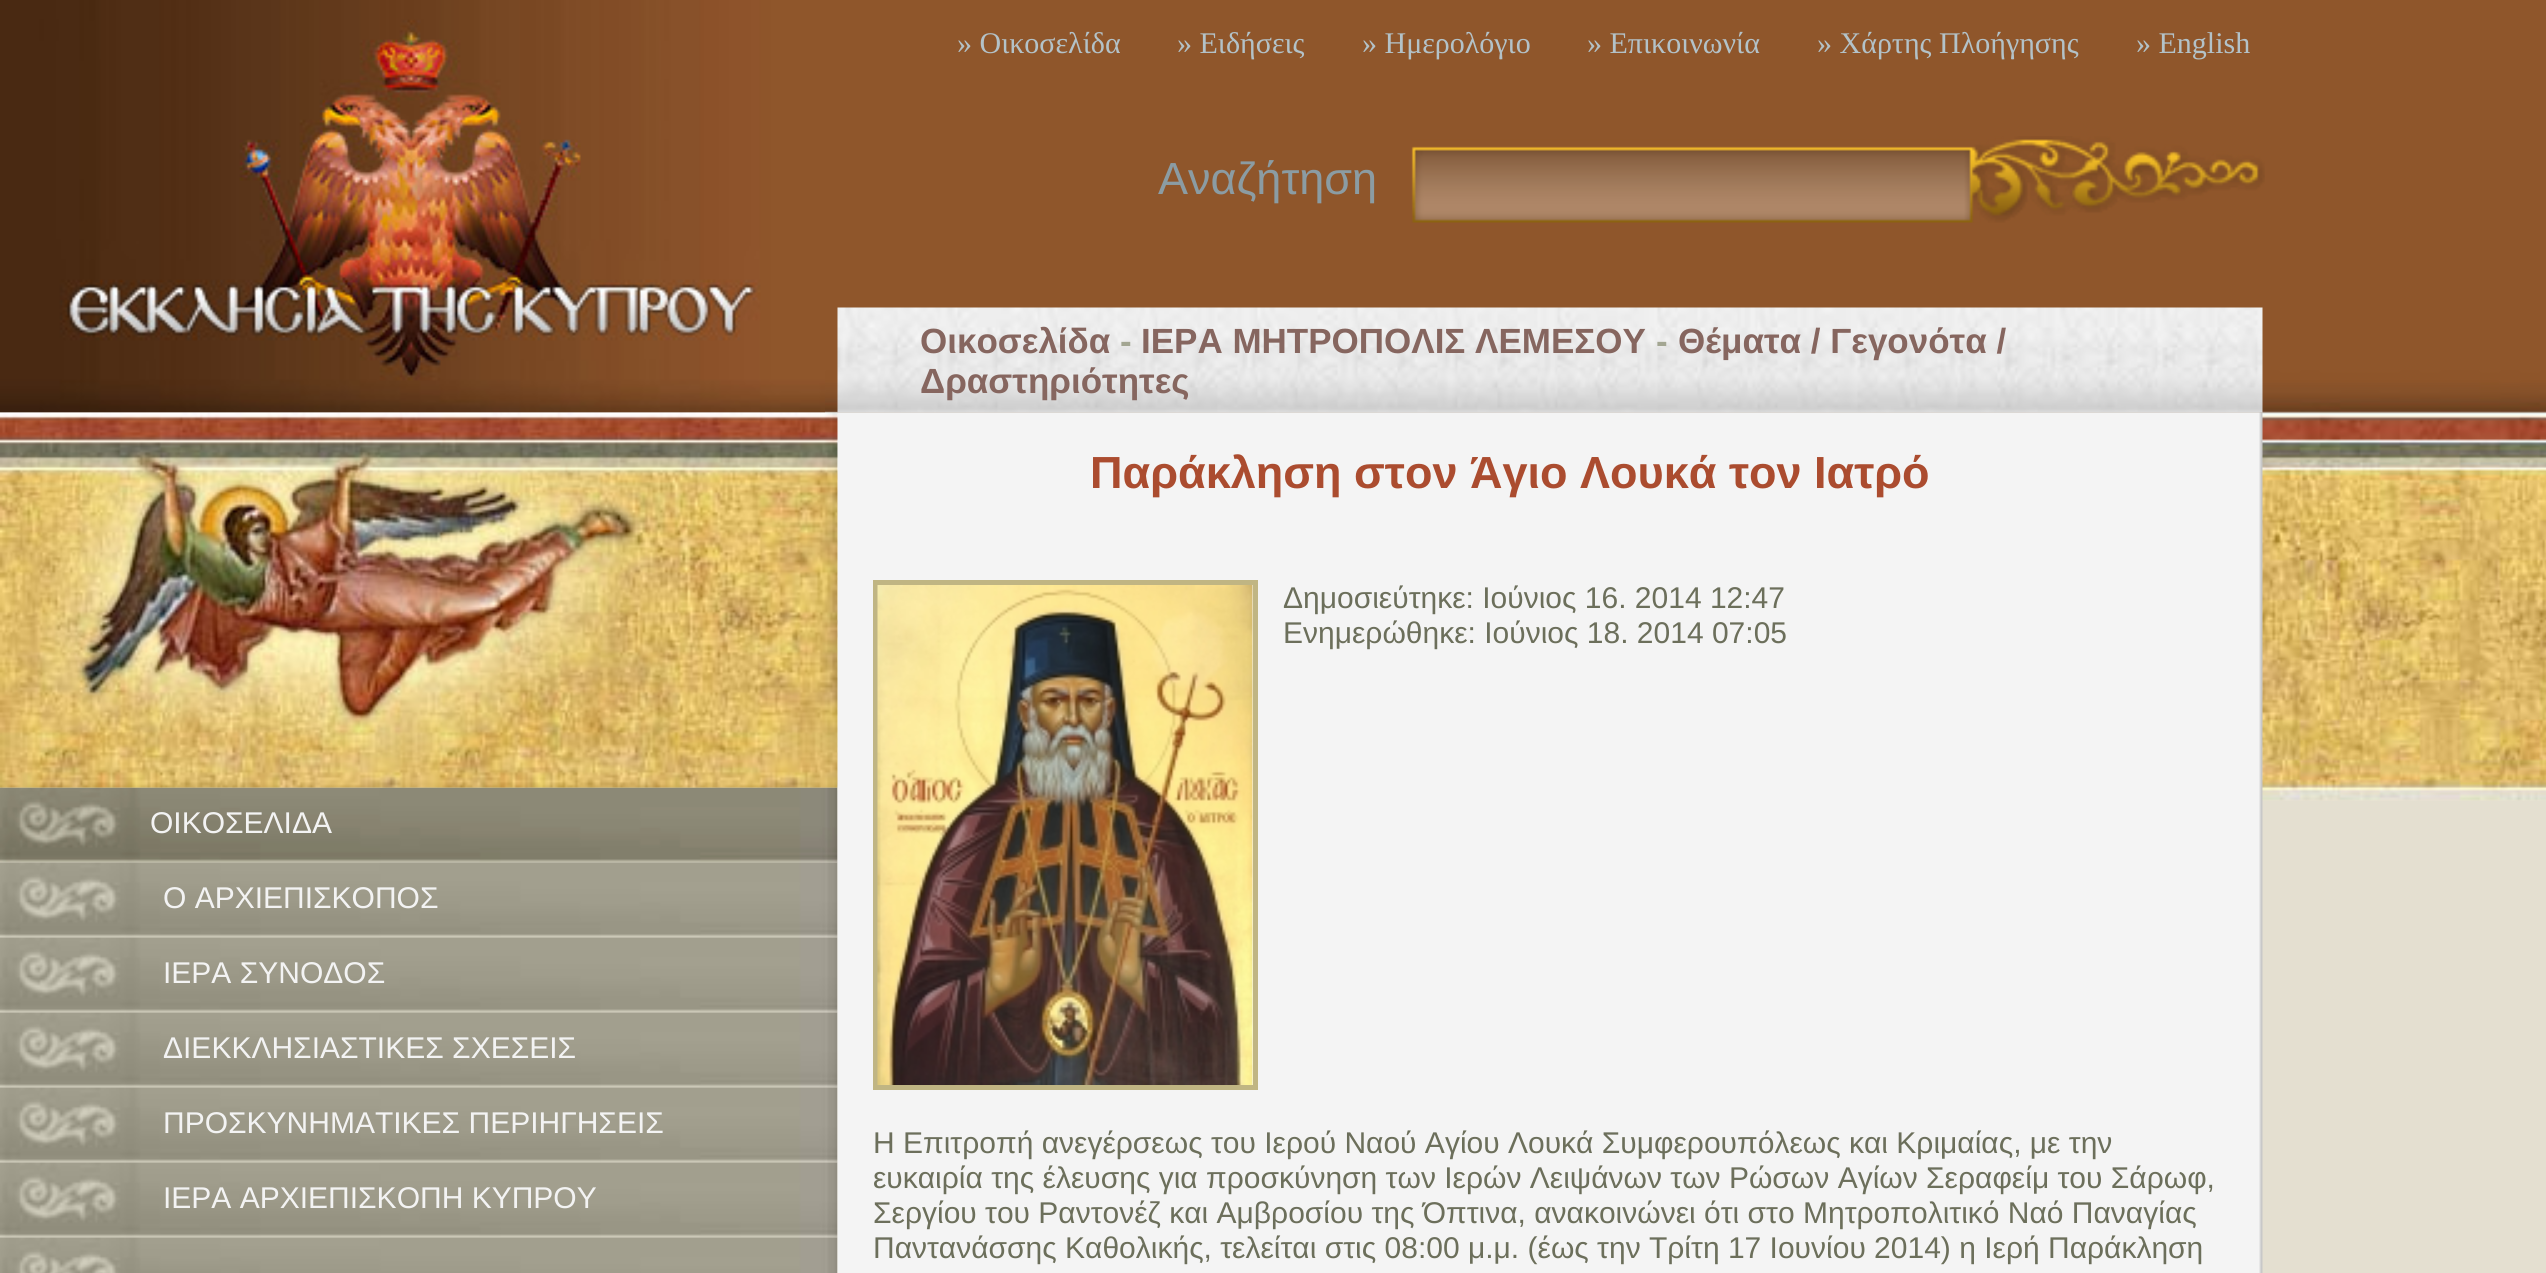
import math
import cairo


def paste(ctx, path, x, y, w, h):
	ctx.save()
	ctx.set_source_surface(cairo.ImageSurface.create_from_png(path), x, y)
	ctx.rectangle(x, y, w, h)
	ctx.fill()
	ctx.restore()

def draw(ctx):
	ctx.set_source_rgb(0.894, 0.875, 0.816)
	ctx.paint()
	paste(ctx, 'media/1.png', 0, 0, 2546, 801)
	paste(ctx, 'media/2.png', 0, 0, 825, 413)
	ctx.select_font_face('Liberation Serif')
	ctx.set_font_size(30)
	ctx.set_source_rgb(0.702, 0.761, 0.784)
	for x, y, s in [
		(957, 53, '» Οικοσελίδα'),
		(1177, 53, '» Ειδήσεις'),
		(1362, 53, '» Ημερολόγιο'),
		(1587, 53, '» Επικοινωνία'),
		(1817, 53, '» Χάρτης Πλοήγησης'),
		(2136, 53, '» English'),
	]:
		ctx.move_to(x, y)
		ctx.show_text(s)
	paste(ctx, 'media/3.png', 1411, 136, 854, 87)
	ctx.select_font_face('Liberation Sans')
	ctx.set_font_size(45)
	ctx.set_source_rgb(0.545, 0.612, 0.639)
	ctx.move_to(1158, 194)
	ctx.show_text('Αναζήτηση')
	paste(ctx, 'media/5.png', 0, 787, 838, 76)
	paste(ctx, 'media/4.png', 0, 412, 838, 376)
	ctx.set_font_size(30)
	ctx.set_source_rgb(0.953, 0.953, 0.953)
	ctx.move_to(150, 833)
	ctx.show_text('ΟΙΚΟΣΕΛΙΔΑ')
	paste(ctx, 'media/6.png', 0, 862, 838, 76)
	ctx.move_to(163, 908)
	ctx.show_text('Ο ΑΡΧΙΕΠΙΣΚΟΠΟΣ')
	paste(ctx, 'media/7.png', 0, 937, 838, 76)
	ctx.move_to(163, 983)
	ctx.show_text('ΙΕΡΑ ΣΥΝΟΔΟΣ')
	paste(ctx, 'media/7.png', 0, 1012, 838, 76)
	ctx.move_to(163, 1058)
	ctx.show_text('ΔΙΕΚΚΛΗΣΙΑΣΤΙΚΕΣ ΣΧΕΣΕΙΣ')
	paste(ctx, 'media/7.png', 0, 1087, 838, 76)
	ctx.move_to(163, 1133)
	ctx.show_text('ΠΡΟΣΚΥΝΗΜΑΤΙΚΕΣ ΠΕΡΙΗΓΗΣΕΙΣ')
	paste(ctx, 'media/8.png', 0, 1162, 838, 76)
	ctx.move_to(163, 1208)
	ctx.show_text('ΙΕΡΑ ΑΡΧΙΕΠΙΣΚΟΠΗ ΚΥΠΡΟΥ')
	paste(ctx, 'media/9.png', 0, 1237, 838, 36)
	paste(ctx, 'media/10.png', 837, 307, 1426, 106)
	ctx.select_font_face('Liberation Sans', cairo.FONT_SLANT_NORMAL, cairo.FONT_WEIGHT_BOLD)
	ctx.set_font_size(35)
	ctx.set_source_rgb(0.525, 0.4, 0.373)
	ctx.move_to(920, 353)
	ctx.show_text('Οικοσελίδα')
	ctx.set_source_rgb(0.639, 0.651, 0.573)
	ctx.move_to(1120, 353)
	ctx.show_text('-')
	ctx.set_source_rgb(0.525, 0.4, 0.373)
	ctx.move_to(1141, 353)
	ctx.show_text('ΙΕΡΑ ΜΗΤΡΟΠΟΛΙΣ ΛΕΜΕΣΟΥ')
	ctx.set_source_rgb(0.639, 0.651, 0.573)
	ctx.move_to(1656, 353)
	ctx.show_text('-')
	ctx.set_source_rgb(0.525, 0.4, 0.373)
	ctx.move_to(1678, 353)
	ctx.show_text('Θέματα / Γεγονότα /')
	ctx.move_to(920, 393)
	ctx.show_text('Δραστηριότητες')
	paste(ctx, 'media/11.png', 837, 412, 1426, 861)
	ctx.set_font_size(45)
	ctx.set_source_rgb(0.671, 0.298, 0.184)
	ctx.move_to(1090, 488)
	ctx.show_text('Παράκληση στον Άγιο Λουκά τον Ιατρό')
	ctx.rectangle(875.5, 582.5, 380, 505)
	ctx.set_source_rgb(0.753, 0.71, 0.514)
	ctx.set_line_width(5)
	ctx.stroke()
	paste(ctx, 'media/12.png', 877, 585, 376, 500)
	ctx.select_font_face('Liberation Sans')
	ctx.set_font_size(30)
	ctx.set_source_rgb(0.424, 0.435, 0.357)
	for x, y, s in [
		(1283, 608, 'Δημοσιεύτηκε: Ιούνιος 16. 2014 12:47'),
		(1283, 643, 'Ενημερώθηκε: Ιούνιος 18. 2014 07:05'),
		(873, 1153, 'Η Επιτροπή ανεγέρσεως του Ιερού Ναού Αγίου Λουκά Συμφερουπόλεως και Κριμαίας, με την'),
		(873, 1188, 'ευκαιρία της έλευσης για προσκύνηση των Ιερών Λειψάνων των Ρώσων Αγίων Σεραφείμ του Σάρωφ,'),
		(873, 1223, 'Σεργίου του Ραντονέζ και Αμβροσίου της Όπτινα, ανακοινώνει ότι στο Μητροπολιτικό Ναό Παναγίας'),
		(873, 1258, 'Παντανάσσης Καθολικής, τελείται στις 08:00 μ.μ. (έως την Τρίτη 17 Ιουνίου 2014) η Ιερή Παράκληση'),
	]:
		ctx.move_to(x, y)
		ctx.show_text(s)


surface = cairo.ImageSurface(cairo.FORMAT_RGB24, 2546, 1273)
ctx = cairo.Context(surface)
options = cairo.FontOptions()
options.set_hint_metrics(cairo.HINT_METRICS_OFF)
options.set_hint_style(cairo.HINT_STYLE_NONE)
ctx.set_font_options(options)
ctx.set_miter_limit(4)
draw(ctx)
surface.write_to_png('image.png')
